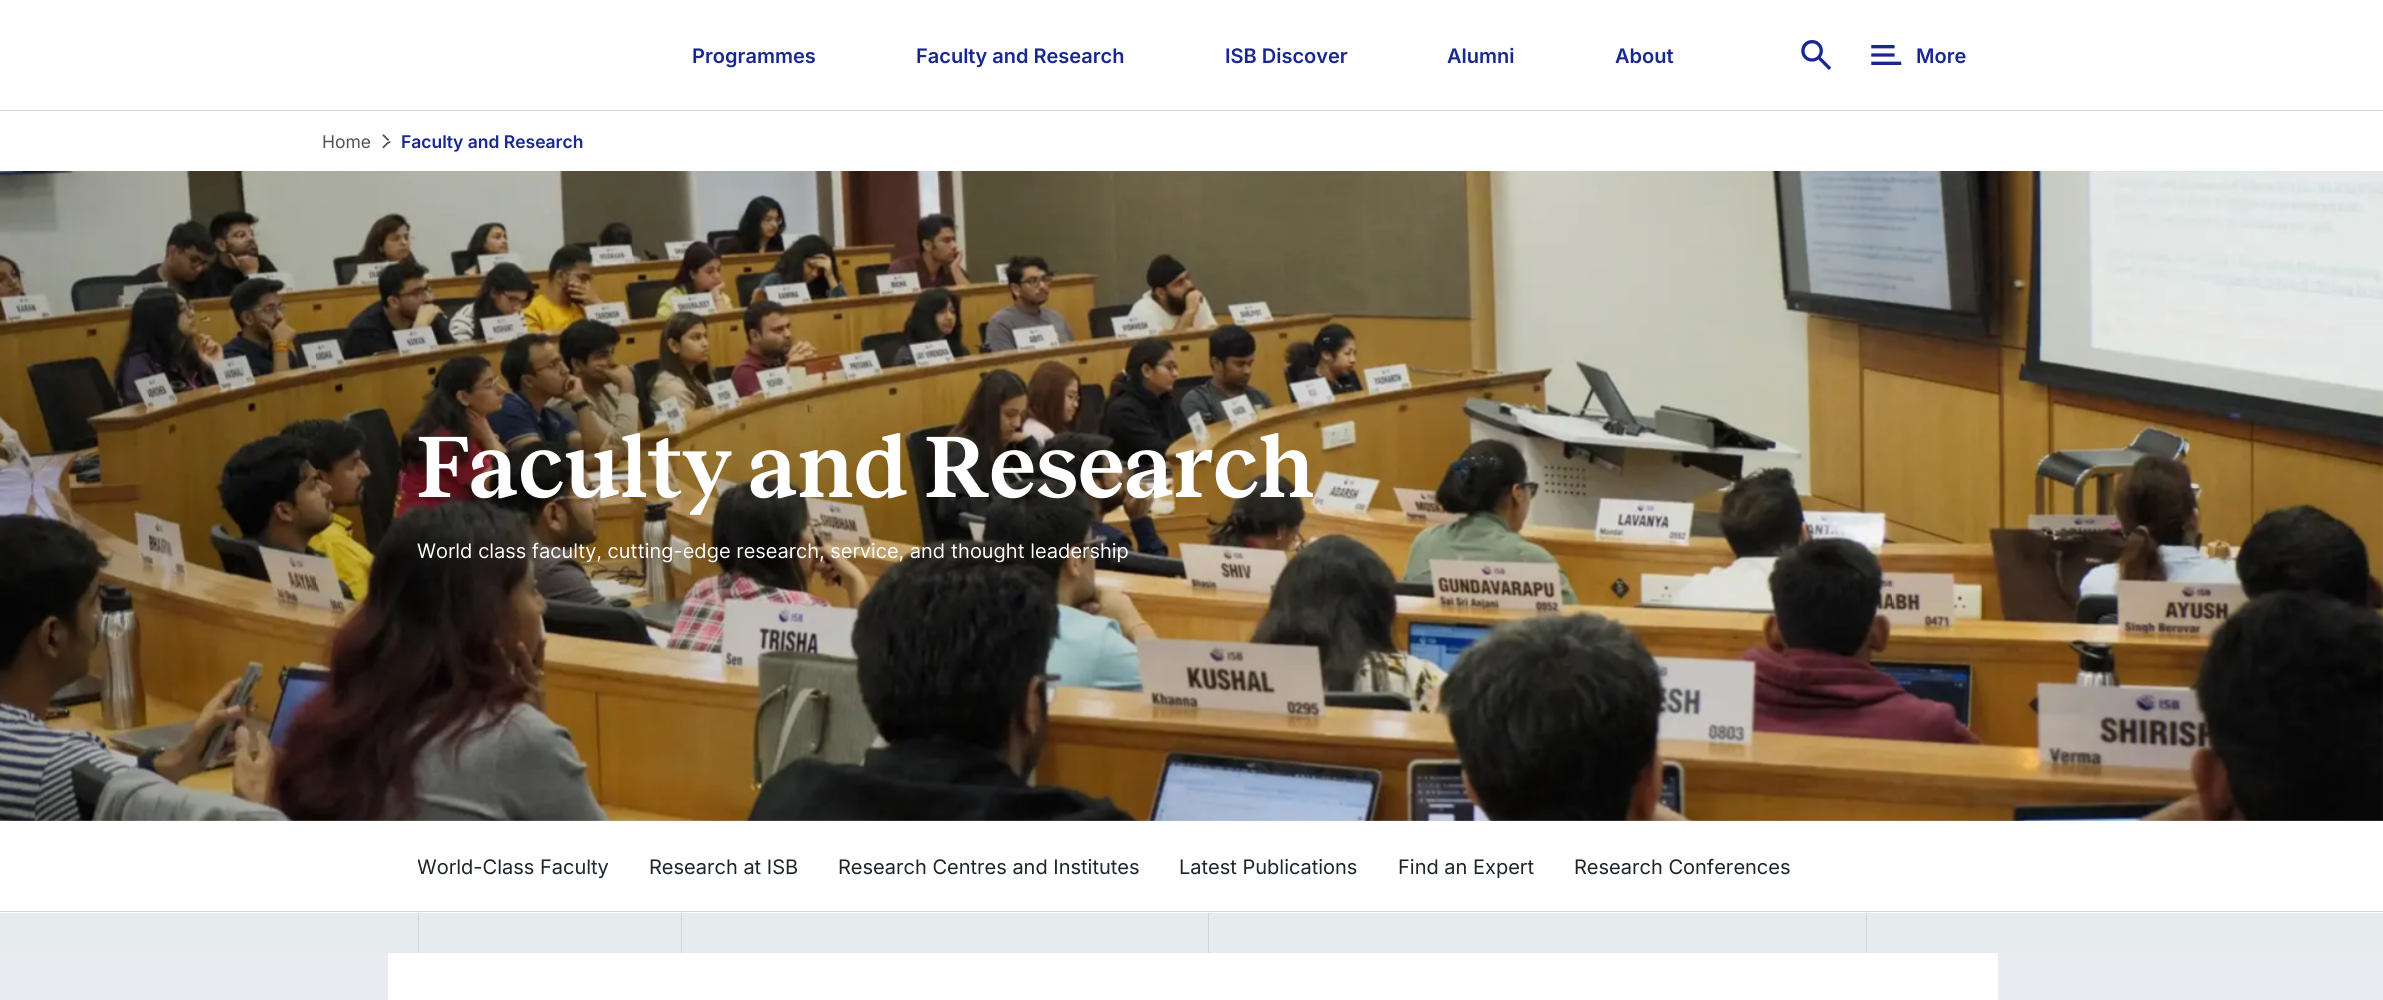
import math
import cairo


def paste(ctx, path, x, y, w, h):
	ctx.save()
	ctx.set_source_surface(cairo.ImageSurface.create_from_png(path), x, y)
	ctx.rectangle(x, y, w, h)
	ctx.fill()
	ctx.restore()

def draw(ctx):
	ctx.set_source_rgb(0.914, 0.929, 0.945)
	ctx.paint()
	ctx.set_source_rgb(1, 1, 1)
	ctx.rectangle(0, 0, 2383, 110)
	ctx.fill()
	ctx.select_font_face('Inter SemiBold')
	ctx.set_font_size(20)
	ctx.set_source_rgb(0.098, 0.157, 0.565)
	for x, y, s in [
		(692, 63, 'Programmes'),
		(916, 63, 'Faculty and Research'),
		(1225, 63, 'ISB Discover'),
		(1447, 63, 'Alumni'),
		(1615, 63, 'About'),
	]:
		ctx.move_to(x, y)
		ctx.show_text(s)
	paste(ctx, 'media/1.png', 1801, 40, 31, 30)
	paste(ctx, 'media/2.png', 1871, 45, 31, 20)
	ctx.move_to(1916, 63)
	ctx.show_text('More')
	ctx.set_source_rgb(1, 1, 1)
	ctx.rectangle(0, 111, 2383, 60)
	ctx.fill()
	ctx.set_source_rgb(0.812, 0.859, 0.886)
	ctx.rectangle(0, 110, 2383, 1)
	ctx.fill()
	ctx.select_font_face('Inter')
	ctx.set_font_size(17.5)
	ctx.set_source_rgb(0.322, 0.322, 0.322)
	ctx.move_to(322, 148)
	ctx.show_text('Home')
	paste(ctx, 'media/3.png', 382, 134, 9, 15)
	ctx.select_font_face('Inter SemiBold')
	ctx.set_source_rgb(0.098, 0.157, 0.565)
	ctx.move_to(401, 148)
	ctx.show_text('Faculty and Research')
	paste(ctx, 'media/4.png', 0, 171, 2383, 650)
	ctx.select_font_face('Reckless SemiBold')
	ctx.set_font_size(90)
	ctx.set_source_rgb(1, 1, 1)
	ctx.move_to(417, 497)
	ctx.show_text('Faculty and Research')
	ctx.select_font_face('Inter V')
	ctx.set_font_size(20)
	ctx.move_to(417, 558)
	ctx.show_text('World class faculty, cutting-edge research, service, and thought leadership')
	ctx.rectangle(0, 821, 2383, 92)
	ctx.fill()
	ctx.set_source_rgb(0.812, 0.859, 0.886)
	ctx.rectangle(0, 911, 2383, 1)
	ctx.fill()
	ctx.save()
	ctx.rectangle(418, 821, 1372, 90)
	ctx.clip()
	ctx.select_font_face('Inter')
	ctx.set_source_rgb(0.114, 0.145, 0.165)
	ctx.move_to(417, 874)
	ctx.show_text('World-Class Faculty')
	ctx.restore()
	ctx.select_font_face('Inter')
	ctx.set_source_rgb(0.114, 0.145, 0.165)
	for x, y, s in [
		(649, 874, 'Research at ISB'),
		(838, 874, 'Research Centres and Institutes'),
		(1179, 874, 'Latest Publications'),
		(1398, 874, 'Find an Expert'),
		(1574, 874, 'Research Conferences'),
	]:
		ctx.move_to(x, y)
		ctx.show_text(s)
	ctx.set_source_rgb(0.902, 0.922, 0.933)
	ctx.rectangle(0, 913, 2383, 40)
	ctx.fill()
	ctx.set_source_rgb(0.82, 0.835, 0.855)
	ctx.rectangle(418, 913, 1, 40)
	ctx.rectangle(681, 913, 1, 40)
	ctx.rectangle(1208, 913, 1, 40)
	ctx.rectangle(1866, 913, 1, 40)
	ctx.fill()
	ctx.set_source_rgb(1, 1, 1)
	ctx.rectangle(388, 953, 1610, 47)
	ctx.fill()


surface = cairo.ImageSurface(cairo.FORMAT_RGB24, 2383, 1000)
ctx = cairo.Context(surface)
options = cairo.FontOptions()
options.set_hint_metrics(cairo.HINT_METRICS_OFF)
options.set_hint_style(cairo.HINT_STYLE_NONE)
ctx.set_font_options(options)
ctx.set_miter_limit(4)
draw(ctx)
surface.write_to_png('image.png')
